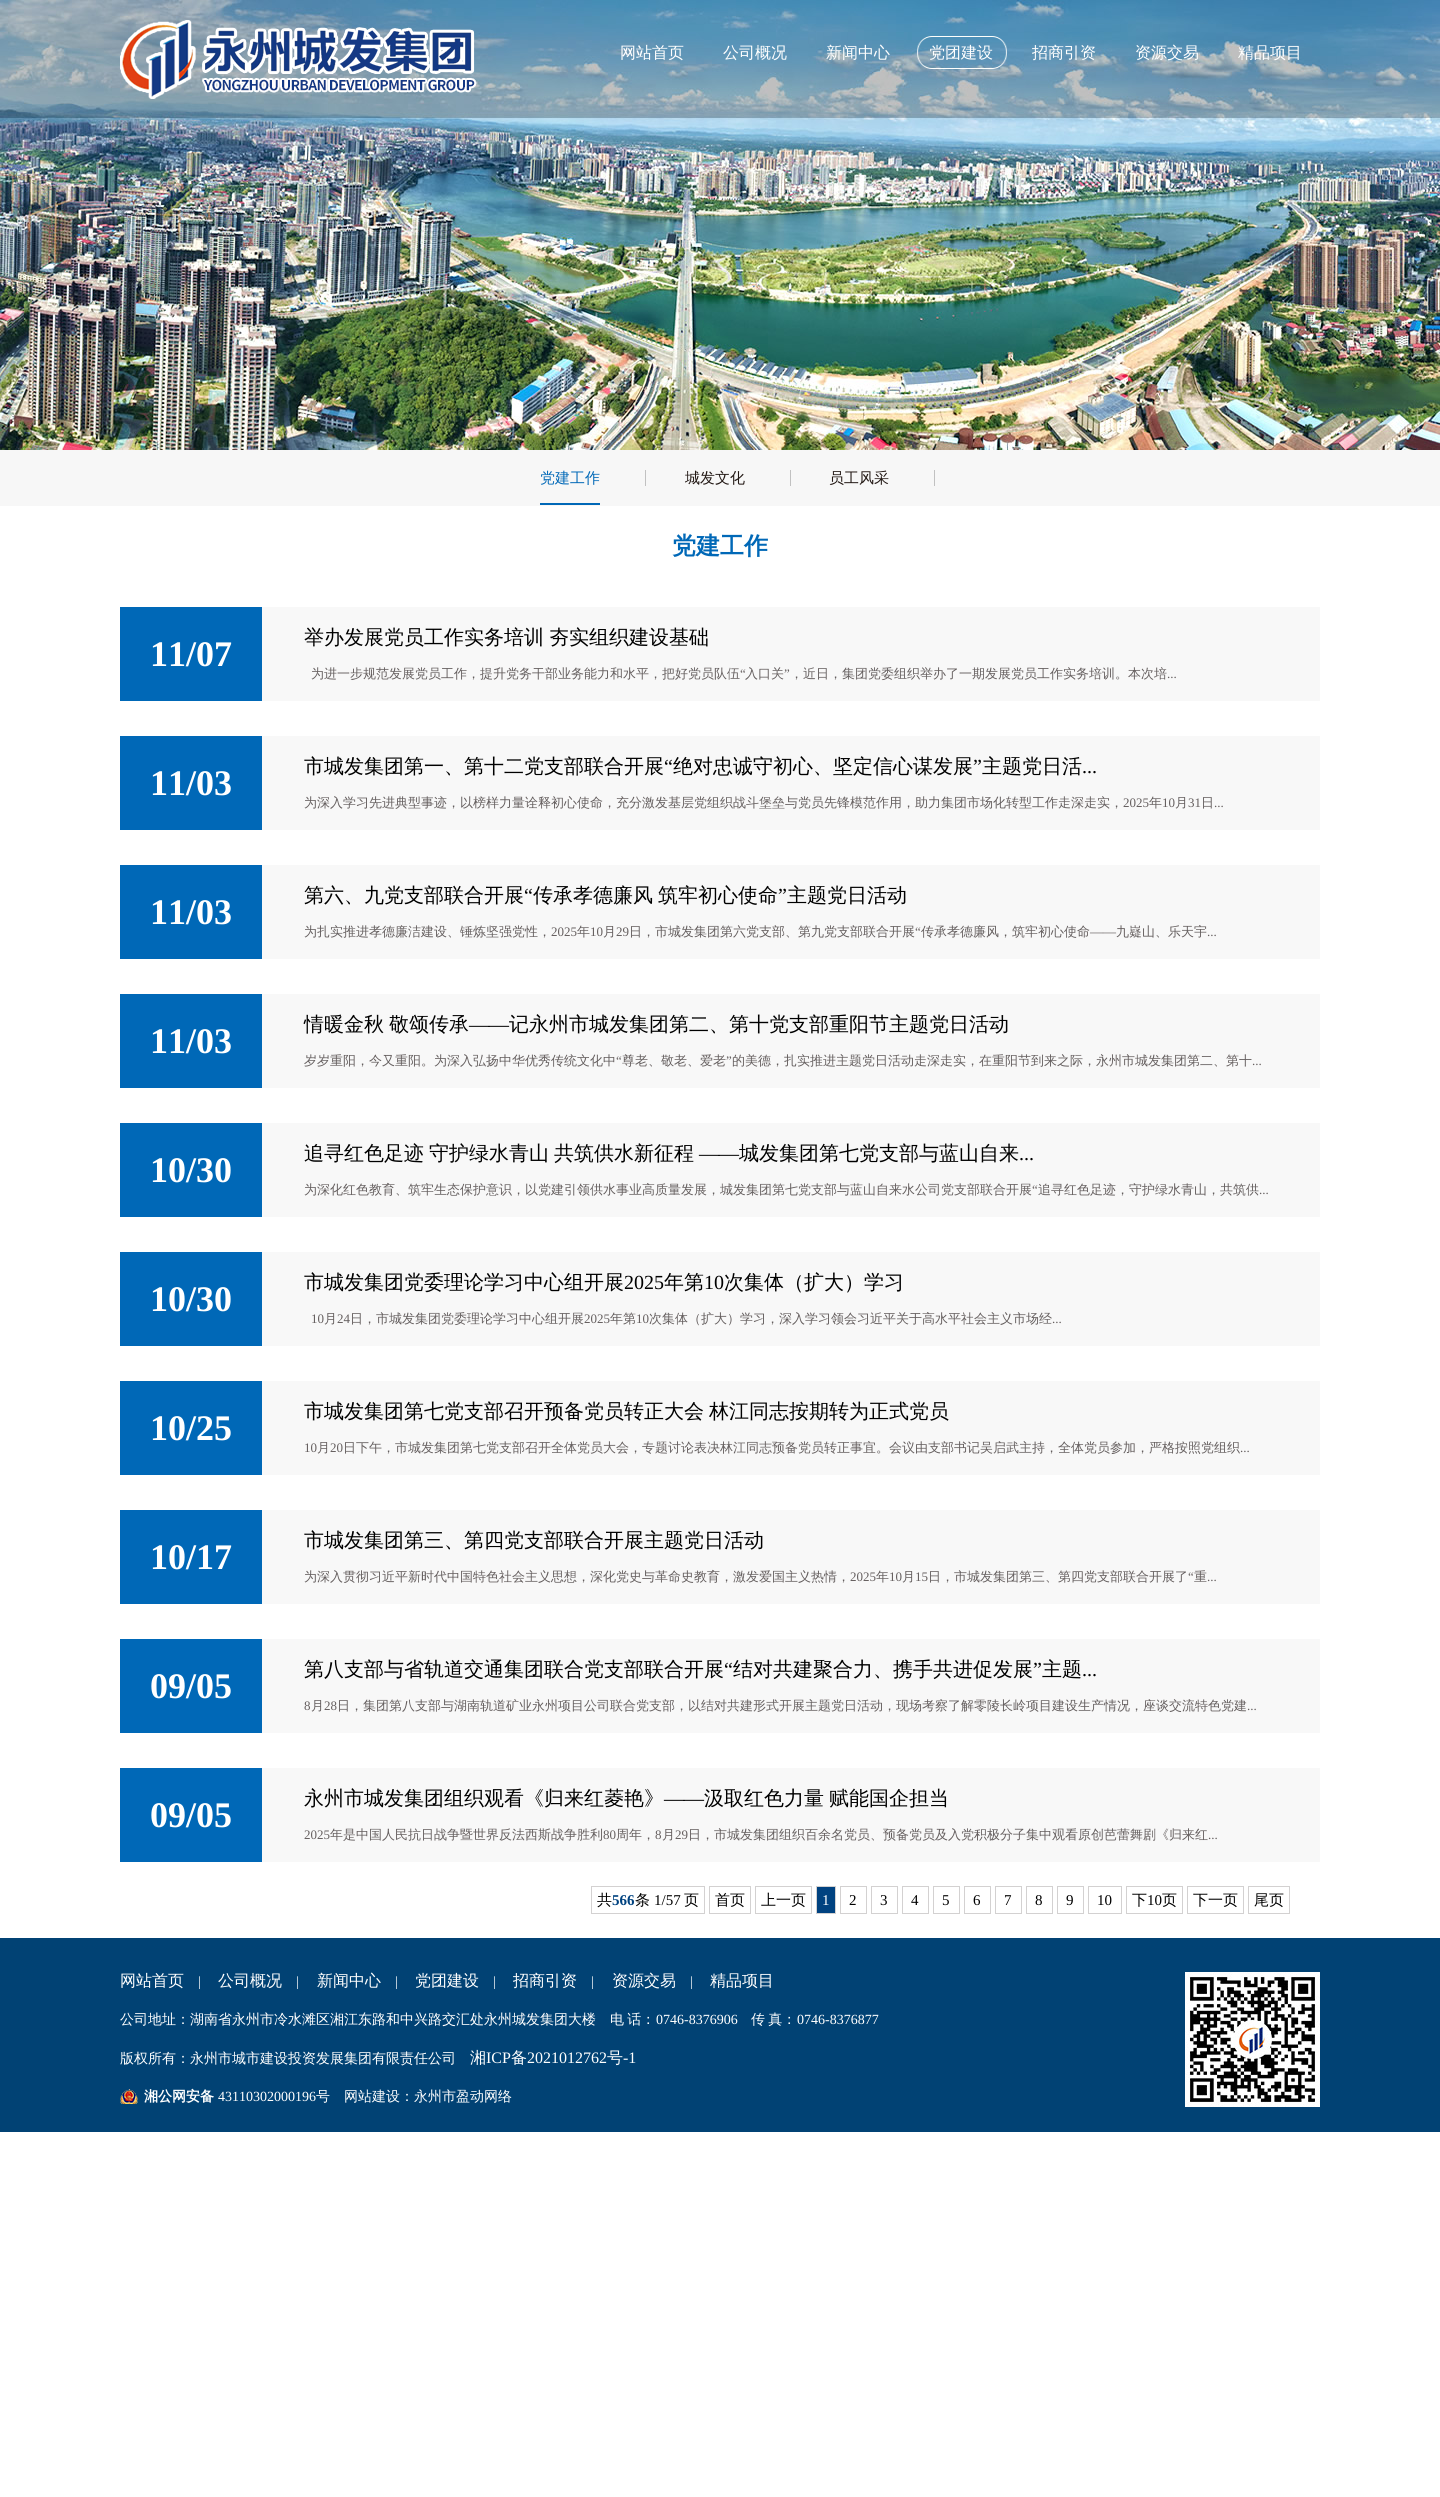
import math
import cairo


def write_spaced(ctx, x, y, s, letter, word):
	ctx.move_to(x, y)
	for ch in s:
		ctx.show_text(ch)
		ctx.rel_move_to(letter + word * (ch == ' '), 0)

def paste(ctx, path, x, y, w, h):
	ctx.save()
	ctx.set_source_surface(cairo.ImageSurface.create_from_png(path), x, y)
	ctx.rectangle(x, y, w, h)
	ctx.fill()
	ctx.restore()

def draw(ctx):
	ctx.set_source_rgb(1, 1, 1)
	ctx.paint()
	paste(ctx, 'media/1.png', 0, 0, 1440, 450)
	paste(ctx, 'media/2.png', 120, 20, 357, 79)
	ctx.select_font_face('WenQuanYi Zen Hei Medium')
	ctx.set_font_size(16)
	ctx.set_source_rgb(1, 1, 1)
	for x, y, s in [
		(620, 58, '网站首页'),
		(723, 58, '公司概况'),
		(826, 58, '新闻中心'),
	]:
		ctx.move_to(x, y)
		ctx.show_text(s)
	paste(ctx, 'media/3.png', 917, 36, 90, 33)
	for x, y, s in [
		(929, 58, '党团建设'),
		(1032, 58, '招商引资'),
		(1135, 58, '资源交易'),
		(1238, 58, '精品项目'),
	]:
		ctx.move_to(x, y)
		ctx.show_text(s)
	ctx.set_source_rgb(0.965, 0.965, 0.965)
	ctx.rectangle(0, 450, 1440, 56)
	ctx.fill()
	ctx.set_font_size(15)
	ctx.set_source_rgb(0, 0.408, 0.718)
	ctx.move_to(540, 483)
	ctx.show_text('党建工作')
	ctx.set_source_rgb(0.757, 0.757, 0.757)
	ctx.rectangle(645, 470, 1, 16)
	ctx.fill()
	ctx.set_source_rgb(0, 0.408, 0.718)
	ctx.rectangle(540, 503, 60, 2)
	ctx.fill()
	ctx.set_source_rgb(0.133, 0.094, 0.082)
	ctx.move_to(685, 483)
	ctx.show_text('城发文化')
	ctx.set_source_rgb(0.757, 0.757, 0.757)
	ctx.rectangle(790, 470, 1, 16)
	ctx.fill()
	ctx.set_source_rgb(0.133, 0.094, 0.082)
	ctx.move_to(829, 483)
	ctx.show_text('员工风采')
	ctx.set_source_rgb(0.757, 0.757, 0.757)
	ctx.rectangle(934, 470, 1, 16)
	ctx.fill()
	ctx.select_font_face('WenQuanYi Zen Hei', cairo.FONT_SLANT_NORMAL, cairo.FONT_WEIGHT_BOLD)
	ctx.set_font_size(24)
	ctx.set_source_rgb(0, 0.408, 0.718)
	ctx.move_to(672, 554)
	ctx.show_text('党建工作')
	ctx.rectangle(120, 607, 142, 94)
	ctx.fill()
	ctx.select_font_face('Liberation Serif', cairo.FONT_SLANT_NORMAL, cairo.FONT_WEIGHT_BOLD)
	ctx.set_font_size(36)
	ctx.set_source_rgb(1, 1, 1)
	ctx.move_to(150, 666)
	ctx.show_text('11/07')
	ctx.set_source_rgb(0.969, 0.969, 0.969)
	ctx.rectangle(262, 607, 1058, 94)
	ctx.fill()
	ctx.select_font_face('WenQuanYi Zen Hei Medium')
	ctx.set_font_size(20)
	ctx.set_source_rgb(0, 0, 0)
	write_spaced(ctx, 304, 644, '举办发展党员工作实务培训 夯实组织建设基础', 0, -1)
	ctx.set_font_size(13)
	ctx.set_source_rgb(0.396, 0.373, 0.373)
	ctx.move_to(311, 678)
	ctx.show_text('为进一步规范发展党员工作，提升党务干部业务能力和水平，把好党员队伍')
	ctx.select_font_face('Liberation Serif')
	ctx.move_to(740, 678)
	ctx.show_text('“')
	ctx.select_font_face('WenQuanYi Zen Hei Medium')
	ctx.move_to(745, 678)
	ctx.show_text('入口关')
	ctx.select_font_face('Liberation Serif')
	ctx.move_to(784, 678)
	ctx.show_text('”')
	ctx.select_font_face('WenQuanYi Zen Hei Medium')
	ctx.move_to(790, 678)
	ctx.show_text('，近日，集团党委组织举办了一期发展党员工作实务培训。本次培')
	ctx.select_font_face('Liberation Serif')
	ctx.move_to(1167, 678)
	ctx.show_text('...')
	ctx.set_source_rgb(0, 0.408, 0.718)
	ctx.rectangle(120, 736, 142, 94)
	ctx.fill()
	ctx.select_font_face('Liberation Serif', cairo.FONT_SLANT_NORMAL, cairo.FONT_WEIGHT_BOLD)
	ctx.set_font_size(36)
	ctx.set_source_rgb(1, 1, 1)
	ctx.move_to(150, 795)
	ctx.show_text('11/03')
	ctx.set_source_rgb(0.969, 0.969, 0.969)
	ctx.rectangle(262, 736, 1058, 94)
	ctx.fill()
	ctx.select_font_face('WenQuanYi Zen Hei Medium')
	ctx.set_font_size(20)
	ctx.set_source_rgb(0, 0, 0)
	ctx.move_to(304, 773)
	ctx.show_text('市城发集团第一、第十二党支部联合开展')
	ctx.select_font_face('Liberation Serif')
	ctx.move_to(664, 773)
	ctx.show_text('“')
	ctx.select_font_face('WenQuanYi Zen Hei Medium')
	ctx.move_to(673, 773)
	ctx.show_text('绝对忠诚守初心、坚定信心谋发展')
	ctx.select_font_face('Liberation Serif')
	ctx.move_to(973, 773)
	ctx.show_text('”')
	ctx.select_font_face('WenQuanYi Zen Hei Medium')
	ctx.move_to(982, 773)
	ctx.show_text('主题党日活')
	ctx.select_font_face('Liberation Serif')
	ctx.move_to(1082, 773)
	ctx.show_text('...')
	ctx.select_font_face('WenQuanYi Zen Hei Medium')
	ctx.set_font_size(13)
	ctx.set_source_rgb(0.396, 0.373, 0.373)
	ctx.move_to(304, 807)
	ctx.show_text('为深入学习先进典型事迹，以榜样力量诠释初心使命，充分激发基层党组织战斗堡垒与党员先锋模范作用，助力集团市场化转型工作走深走实，')
	ctx.select_font_face('Liberation Serif')
	ctx.move_to(1123, 807)
	ctx.show_text('2025')
	ctx.select_font_face('WenQuanYi Zen Hei Medium')
	ctx.move_to(1149, 807)
	ctx.show_text('年')
	ctx.select_font_face('Liberation Serif')
	ctx.move_to(1162, 807)
	ctx.show_text('10')
	ctx.select_font_face('WenQuanYi Zen Hei Medium')
	ctx.move_to(1175, 807)
	ctx.show_text('月')
	ctx.select_font_face('Liberation Serif')
	ctx.move_to(1188, 807)
	ctx.show_text('31')
	ctx.select_font_face('WenQuanYi Zen Hei Medium')
	ctx.move_to(1201, 807)
	ctx.show_text('日')
	ctx.select_font_face('Liberation Serif')
	ctx.move_to(1214, 807)
	ctx.show_text('...')
	ctx.set_source_rgb(0, 0.408, 0.718)
	ctx.rectangle(120, 865, 142, 94)
	ctx.fill()
	ctx.select_font_face('Liberation Serif', cairo.FONT_SLANT_NORMAL, cairo.FONT_WEIGHT_BOLD)
	ctx.set_font_size(36)
	ctx.set_source_rgb(1, 1, 1)
	ctx.move_to(150, 924)
	ctx.show_text('11/03')
	ctx.set_source_rgb(0.969, 0.969, 0.969)
	ctx.rectangle(262, 865, 1058, 94)
	ctx.fill()
	ctx.select_font_face('WenQuanYi Zen Hei Medium')
	ctx.set_font_size(20)
	ctx.set_source_rgb(0, 0, 0)
	ctx.move_to(304, 902)
	ctx.show_text('第六、九党支部联合开展')
	ctx.select_font_face('Liberation Serif')
	ctx.move_to(524, 902)
	ctx.show_text('“')
	ctx.select_font_face('WenQuanYi Zen Hei Medium')
	write_spaced(ctx, 533, 902, '传承孝德廉风 筑牢初心使命', 0, -1)
	ctx.select_font_face('Liberation Serif')
	ctx.move_to(778, 902)
	ctx.show_text('”')
	ctx.select_font_face('WenQuanYi Zen Hei Medium')
	ctx.move_to(787, 902)
	ctx.show_text('主题党日活动')
	ctx.set_font_size(13)
	ctx.set_source_rgb(0.396, 0.373, 0.373)
	ctx.move_to(304, 936)
	ctx.show_text('为扎实推进孝德廉洁建设、锤炼坚强党性，')
	ctx.select_font_face('Liberation Serif')
	ctx.move_to(551, 936)
	ctx.show_text('2025')
	ctx.select_font_face('WenQuanYi Zen Hei Medium')
	ctx.move_to(577, 936)
	ctx.show_text('年')
	ctx.select_font_face('Liberation Serif')
	ctx.move_to(590, 936)
	ctx.show_text('10')
	ctx.select_font_face('WenQuanYi Zen Hei Medium')
	ctx.move_to(603, 936)
	ctx.show_text('月')
	ctx.select_font_face('Liberation Serif')
	ctx.move_to(616, 936)
	ctx.show_text('29')
	ctx.select_font_face('WenQuanYi Zen Hei Medium')
	ctx.move_to(629, 936)
	ctx.show_text('日，市城发集团第六党支部、第九党支部联合开展')
	ctx.select_font_face('Liberation Serif')
	ctx.move_to(915, 936)
	ctx.show_text('“')
	ctx.select_font_face('WenQuanYi Zen Hei Medium')
	ctx.move_to(921, 936)
	ctx.show_text('传承孝德廉风，筑牢初心使命')
	ctx.move_to(1116, 936)
	ctx.show_text('九嶷山、乐天宇')
	ctx.select_font_face('Liberation Serif')
	ctx.move_to(1090, 936)
	ctx.show_text('——')
	ctx.move_to(1207, 936)
	ctx.show_text('...')
	ctx.set_source_rgb(0, 0.408, 0.718)
	ctx.rectangle(120, 994, 142, 94)
	ctx.fill()
	ctx.select_font_face('Liberation Serif', cairo.FONT_SLANT_NORMAL, cairo.FONT_WEIGHT_BOLD)
	ctx.set_font_size(36)
	ctx.set_source_rgb(1, 1, 1)
	ctx.move_to(150, 1053)
	ctx.show_text('11/03')
	ctx.set_source_rgb(0.969, 0.969, 0.969)
	ctx.rectangle(262, 994, 1058, 94)
	ctx.fill()
	ctx.select_font_face('WenQuanYi Zen Hei Medium')
	ctx.set_font_size(20)
	ctx.set_source_rgb(0, 0, 0)
	ctx.move_to(304, 1031)
	ctx.show_text('情暖金秋')
	ctx.move_to(389, 1031)
	ctx.show_text('敬颂传承')
	ctx.select_font_face('Liberation Serif')
	ctx.move_to(469, 1031)
	ctx.show_text('——')
	ctx.select_font_face('WenQuanYi Zen Hei Medium')
	ctx.move_to(509, 1031)
	ctx.show_text('记永州市城发集团第二、第十党支部重阳节主题党日活动')
	ctx.set_font_size(13)
	ctx.set_source_rgb(0.396, 0.373, 0.373)
	ctx.move_to(304, 1065)
	ctx.show_text('岁岁重阳，今又重阳。为深入弘扬中华优秀传统文化中')
	ctx.select_font_face('Liberation Serif')
	ctx.move_to(616, 1065)
	ctx.show_text('“')
	ctx.select_font_face('WenQuanYi Zen Hei Medium')
	ctx.move_to(622, 1065)
	ctx.show_text('尊老、敬老、爱老')
	ctx.select_font_face('Liberation Serif')
	ctx.move_to(726, 1065)
	ctx.show_text('”')
	ctx.select_font_face('WenQuanYi Zen Hei Medium')
	ctx.move_to(732, 1065)
	ctx.show_text('的美德，扎实推进主题党日活动走深走实，在重阳节到来之际，永州市城发集团第二、第十')
	ctx.select_font_face('Liberation Serif')
	ctx.move_to(1252, 1065)
	ctx.show_text('...')
	ctx.set_source_rgb(0, 0.408, 0.718)
	ctx.rectangle(120, 1123, 142, 94)
	ctx.fill()
	ctx.select_font_face('Liberation Serif', cairo.FONT_SLANT_NORMAL, cairo.FONT_WEIGHT_BOLD)
	ctx.set_font_size(36)
	ctx.set_source_rgb(1, 1, 1)
	ctx.move_to(150, 1182)
	ctx.show_text('10/30')
	ctx.set_source_rgb(0.969, 0.969, 0.969)
	ctx.rectangle(262, 1123, 1058, 94)
	ctx.fill()
	ctx.select_font_face('WenQuanYi Zen Hei Medium')
	ctx.set_font_size(20)
	ctx.set_source_rgb(0, 0, 0)
	for x, y, s in [
		(304, 1160, '追寻红色足迹'),
		(429, 1160, '守护绿水青山'),
		(554, 1160, '共筑供水新征程'),
	]:
		ctx.move_to(x, y)
		ctx.show_text(s)
	ctx.select_font_face('Liberation Serif')
	ctx.move_to(699, 1160)
	ctx.show_text('——')
	ctx.select_font_face('WenQuanYi Zen Hei Medium')
	ctx.move_to(739, 1160)
	ctx.show_text('城发集团第七党支部与蓝山自来')
	ctx.select_font_face('Liberation Serif')
	ctx.move_to(1019, 1160)
	ctx.show_text('...')
	ctx.select_font_face('WenQuanYi Zen Hei Medium')
	ctx.set_font_size(13)
	ctx.set_source_rgb(0.396, 0.373, 0.373)
	ctx.move_to(304, 1194)
	ctx.show_text('为深化红色教育、筑牢生态保护意识，以党建引领供水事业高质量发展，城发集团第七党支部与蓝山自来水公司党支部联合开展')
	ctx.select_font_face('Liberation Serif')
	ctx.move_to(1032, 1194)
	ctx.show_text('“')
	ctx.select_font_face('WenQuanYi Zen Hei Medium')
	ctx.move_to(1038, 1194)
	ctx.show_text('追寻红色足迹，守护绿水青山，共筑供')
	ctx.select_font_face('Liberation Serif')
	ctx.move_to(1259, 1194)
	ctx.show_text('...')
	ctx.set_source_rgb(0, 0.408, 0.718)
	ctx.rectangle(120, 1252, 142, 94)
	ctx.fill()
	ctx.select_font_face('Liberation Serif', cairo.FONT_SLANT_NORMAL, cairo.FONT_WEIGHT_BOLD)
	ctx.set_font_size(36)
	ctx.set_source_rgb(1, 1, 1)
	ctx.move_to(150, 1311)
	ctx.show_text('10/30')
	ctx.set_source_rgb(0.969, 0.969, 0.969)
	ctx.rectangle(262, 1252, 1058, 94)
	ctx.fill()
	ctx.select_font_face('WenQuanYi Zen Hei Medium')
	ctx.set_font_size(20)
	ctx.set_source_rgb(0, 0, 0)
	ctx.move_to(304, 1289)
	ctx.show_text('市城发集团党委理论学习中心组开展')
	ctx.select_font_face('Liberation Serif')
	ctx.move_to(624, 1289)
	ctx.show_text('2025')
	ctx.select_font_face('WenQuanYi Zen Hei Medium')
	ctx.move_to(664, 1289)
	ctx.show_text('年第')
	ctx.select_font_face('Liberation Serif')
	ctx.move_to(704, 1289)
	ctx.show_text('10')
	ctx.select_font_face('WenQuanYi Zen Hei Medium')
	ctx.move_to(724, 1289)
	ctx.show_text('次集体（扩大）学习')
	ctx.select_font_face('Liberation Serif')
	ctx.set_font_size(13)
	ctx.set_source_rgb(0.396, 0.373, 0.373)
	ctx.move_to(311, 1323)
	ctx.show_text('10')
	ctx.select_font_face('WenQuanYi Zen Hei Medium')
	ctx.move_to(324, 1323)
	ctx.show_text('月')
	ctx.select_font_face('Liberation Serif')
	ctx.move_to(337, 1323)
	ctx.show_text('24')
	ctx.select_font_face('WenQuanYi Zen Hei Medium')
	ctx.move_to(350, 1323)
	ctx.show_text('日，市城发集团党委理论学习中心组开展')
	ctx.select_font_face('Liberation Serif')
	ctx.move_to(584, 1323)
	ctx.show_text('2025')
	ctx.select_font_face('WenQuanYi Zen Hei Medium')
	ctx.move_to(610, 1323)
	ctx.show_text('年第')
	ctx.select_font_face('Liberation Serif')
	ctx.move_to(636, 1323)
	ctx.show_text('10')
	ctx.select_font_face('WenQuanYi Zen Hei Medium')
	ctx.move_to(649, 1323)
	ctx.show_text('次集体（扩大）学习，深入学习领会习近平关于高水平社会主义市场经')
	ctx.select_font_face('Liberation Serif')
	ctx.move_to(1052, 1323)
	ctx.show_text('...')
	ctx.set_source_rgb(0, 0.408, 0.718)
	ctx.rectangle(120, 1381, 142, 94)
	ctx.fill()
	ctx.select_font_face('Liberation Serif', cairo.FONT_SLANT_NORMAL, cairo.FONT_WEIGHT_BOLD)
	ctx.set_font_size(36)
	ctx.set_source_rgb(1, 1, 1)
	ctx.move_to(150, 1440)
	ctx.show_text('10/25')
	ctx.set_source_rgb(0.969, 0.969, 0.969)
	ctx.rectangle(262, 1381, 1058, 94)
	ctx.fill()
	ctx.select_font_face('WenQuanYi Zen Hei Medium')
	ctx.set_font_size(20)
	ctx.set_source_rgb(0, 0, 0)
	ctx.move_to(304, 1418)
	ctx.show_text('市城发集团第七党支部召开预备党员转正大会')
	ctx.move_to(709, 1418)
	ctx.show_text('林江同志按期转为正式党员')
	ctx.select_font_face('Liberation Serif')
	ctx.set_font_size(13)
	ctx.set_source_rgb(0.396, 0.373, 0.373)
	ctx.move_to(304, 1452)
	ctx.show_text('10')
	ctx.select_font_face('WenQuanYi Zen Hei Medium')
	ctx.move_to(317, 1452)
	ctx.show_text('月')
	ctx.select_font_face('Liberation Serif')
	ctx.move_to(330, 1452)
	ctx.show_text('20')
	ctx.select_font_face('WenQuanYi Zen Hei Medium')
	ctx.move_to(343, 1452)
	ctx.show_text('日下午，市城发集团第七党支部召开全体党员大会，专题讨论表决林江同志预备党员转正事宜。会议由支部书记吴启武主持，全体党员参加，严格按照党组织')
	ctx.select_font_face('Liberation Serif')
	ctx.move_to(1240, 1452)
	ctx.show_text('...')
	ctx.set_source_rgb(0, 0.408, 0.718)
	ctx.rectangle(120, 1510, 142, 94)
	ctx.fill()
	ctx.select_font_face('Liberation Serif', cairo.FONT_SLANT_NORMAL, cairo.FONT_WEIGHT_BOLD)
	ctx.set_font_size(36)
	ctx.set_source_rgb(1, 1, 1)
	ctx.move_to(150, 1569)
	ctx.show_text('10/17')
	ctx.set_source_rgb(0.969, 0.969, 0.969)
	ctx.rectangle(262, 1510, 1058, 94)
	ctx.fill()
	ctx.select_font_face('WenQuanYi Zen Hei Medium')
	ctx.set_font_size(20)
	ctx.set_source_rgb(0, 0, 0)
	ctx.move_to(304, 1547)
	ctx.show_text('市城发集团第三、第四党支部联合开展主题党日活动')
	ctx.set_font_size(13)
	ctx.set_source_rgb(0.396, 0.373, 0.373)
	ctx.move_to(304, 1581)
	ctx.show_text('为深入贯彻习近平新时代中国特色社会主义思想，深化党史与革命史教育，激发爱国主义热情，')
	ctx.select_font_face('Liberation Serif')
	ctx.move_to(850, 1581)
	ctx.show_text('2025')
	ctx.select_font_face('WenQuanYi Zen Hei Medium')
	ctx.move_to(876, 1581)
	ctx.show_text('年')
	ctx.select_font_face('Liberation Serif')
	ctx.move_to(889, 1581)
	ctx.show_text('10')
	ctx.select_font_face('WenQuanYi Zen Hei Medium')
	ctx.move_to(902, 1581)
	ctx.show_text('月')
	ctx.select_font_face('Liberation Serif')
	ctx.move_to(915, 1581)
	ctx.show_text('15')
	ctx.select_font_face('WenQuanYi Zen Hei Medium')
	ctx.move_to(928, 1581)
	ctx.show_text('日，市城发集团第三、第四党支部联合开展了')
	ctx.select_font_face('Liberation Serif')
	ctx.move_to(1188, 1581)
	ctx.show_text('“')
	ctx.select_font_face('WenQuanYi Zen Hei Medium')
	ctx.move_to(1194, 1581)
	ctx.show_text('重')
	ctx.select_font_face('Liberation Serif')
	ctx.move_to(1207, 1581)
	ctx.show_text('...')
	ctx.set_source_rgb(0, 0.408, 0.718)
	ctx.rectangle(120, 1639, 142, 94)
	ctx.fill()
	ctx.select_font_face('Liberation Serif', cairo.FONT_SLANT_NORMAL, cairo.FONT_WEIGHT_BOLD)
	ctx.set_font_size(36)
	ctx.set_source_rgb(1, 1, 1)
	ctx.move_to(150, 1698)
	ctx.show_text('09/05')
	ctx.set_source_rgb(0.969, 0.969, 0.969)
	ctx.rectangle(262, 1639, 1058, 94)
	ctx.fill()
	ctx.select_font_face('WenQuanYi Zen Hei Medium')
	ctx.set_font_size(20)
	ctx.set_source_rgb(0, 0, 0)
	ctx.move_to(304, 1676)
	ctx.show_text('第八支部与省轨道交通集团联合党支部联合开展')
	ctx.select_font_face('Liberation Serif')
	ctx.move_to(724, 1676)
	ctx.show_text('“')
	ctx.select_font_face('WenQuanYi Zen Hei Medium')
	ctx.move_to(733, 1676)
	ctx.show_text('结对共建聚合力、携手共进促发展')
	ctx.select_font_face('Liberation Serif')
	ctx.move_to(1033, 1676)
	ctx.show_text('”')
	ctx.select_font_face('WenQuanYi Zen Hei Medium')
	ctx.move_to(1042, 1676)
	ctx.show_text('主题')
	ctx.select_font_face('Liberation Serif')
	ctx.move_to(1082, 1676)
	ctx.show_text('...')
	ctx.set_font_size(13)
	ctx.set_source_rgb(0.396, 0.373, 0.373)
	ctx.move_to(304, 1710)
	ctx.show_text('8')
	ctx.select_font_face('WenQuanYi Zen Hei Medium')
	ctx.move_to(311, 1710)
	ctx.show_text('月')
	ctx.select_font_face('Liberation Serif')
	ctx.move_to(324, 1710)
	ctx.show_text('28')
	ctx.select_font_face('WenQuanYi Zen Hei Medium')
	ctx.move_to(337, 1710)
	ctx.show_text('日，集团第八支部与湖南轨道矿业永州项目公司联合党支部，以结对共建形式开展主题党日活动，现场考察了解零陵长岭项目建设生产情况，座谈交流特色党建')
	ctx.select_font_face('Liberation Serif')
	ctx.move_to(1247, 1710)
	ctx.show_text('...')
	ctx.set_source_rgb(0, 0.408, 0.718)
	ctx.rectangle(120, 1768, 142, 94)
	ctx.fill()
	ctx.select_font_face('Liberation Serif', cairo.FONT_SLANT_NORMAL, cairo.FONT_WEIGHT_BOLD)
	ctx.set_font_size(36)
	ctx.set_source_rgb(1, 1, 1)
	ctx.move_to(150, 1827)
	ctx.show_text('09/05')
	ctx.set_source_rgb(0.969, 0.969, 0.969)
	ctx.rectangle(262, 1768, 1058, 94)
	ctx.fill()
	ctx.select_font_face('WenQuanYi Zen Hei Medium')
	ctx.set_font_size(20)
	ctx.set_source_rgb(0, 0, 0)
	ctx.move_to(304, 1805)
	ctx.show_text('永州市城发集团组织观看《归来红菱艳》')
	ctx.select_font_face('Liberation Serif')
	ctx.move_to(664, 1805)
	ctx.show_text('——')
	ctx.select_font_face('WenQuanYi Zen Hei Medium')
	write_spaced(ctx, 704, 1805, '汲取红色力量 赋能国企担当', 0, -1)
	ctx.select_font_face('Liberation Serif')
	ctx.set_font_size(13)
	ctx.set_source_rgb(0.396, 0.373, 0.373)
	ctx.move_to(304, 1839)
	ctx.show_text('2025')
	ctx.select_font_face('WenQuanYi Zen Hei Medium')
	ctx.move_to(330, 1839)
	ctx.show_text('年是中国人民抗日战争暨世界反法西斯战争胜利')
	ctx.select_font_face('Liberation Serif')
	ctx.move_to(603, 1839)
	ctx.show_text('80')
	ctx.select_font_face('WenQuanYi Zen Hei Medium')
	ctx.move_to(616, 1839)
	ctx.show_text('周年，')
	ctx.select_font_face('Liberation Serif')
	ctx.move_to(655, 1839)
	ctx.show_text('8')
	ctx.select_font_face('WenQuanYi Zen Hei Medium')
	ctx.move_to(662, 1839)
	ctx.show_text('月')
	ctx.select_font_face('Liberation Serif')
	ctx.move_to(675, 1839)
	ctx.show_text('29')
	ctx.select_font_face('WenQuanYi Zen Hei Medium')
	ctx.move_to(688, 1839)
	ctx.show_text('日，市城发集团组织百余名党员、预备党员及入党积极分子集中观看原创芭蕾舞剧《归来红')
	ctx.select_font_face('Liberation Serif')
	ctx.move_to(1208, 1839)
	ctx.show_text('...')
	ctx.rectangle(591.5, 1886.5, 113, 27)
	ctx.set_source_rgb(0.827, 0.82, 0.82)
	ctx.set_line_width(1)
	ctx.stroke()
	ctx.select_font_face('WenQuanYi Zen Hei Medium')
	ctx.set_font_size(15)
	ctx.set_source_rgb(0, 0, 0)
	ctx.move_to(597, 1905)
	ctx.show_text('共')
	ctx.select_font_face('Liberation Serif', cairo.FONT_SLANT_NORMAL, cairo.FONT_WEIGHT_BOLD)
	ctx.set_source_rgb(0, 0.259, 0.502)
	ctx.move_to(612, 1905)
	ctx.show_text('566')
	ctx.select_font_face('WenQuanYi Zen Hei Medium')
	ctx.set_source_rgb(0, 0, 0)
	ctx.move_to(635, 1905)
	ctx.show_text('条')
	ctx.select_font_face('Liberation Serif')
	ctx.move_to(654, 1905)
	ctx.show_text('1/57')
	ctx.select_font_face('WenQuanYi Zen Hei Medium')
	ctx.move_to(684, 1905)
	ctx.show_text('页')
	ctx.rectangle(709.5, 1886.5, 41, 27)
	ctx.set_source_rgb(0.827, 0.82, 0.82)
	ctx.stroke()
	ctx.set_source_rgb(0, 0, 0)
	ctx.move_to(715, 1905)
	ctx.show_text('首页')
	ctx.rectangle(755.5, 1886.5, 56, 27)
	ctx.set_source_rgb(0.827, 0.82, 0.82)
	ctx.stroke()
	ctx.set_source_rgb(0, 0, 0)
	ctx.move_to(761, 1905)
	ctx.show_text('上一页')
	ctx.set_source_rgb(0, 0.259, 0.502)
	ctx.rectangle(816.5, 1886.5, 19, 27)
	ctx.fill_preserve()
	ctx.set_source_rgb(0.827, 0.82, 0.82)
	ctx.stroke()
	ctx.select_font_face('Liberation Serif')
	ctx.set_source_rgb(1, 1, 1)
	ctx.move_to(822, 1905)
	ctx.show_text('1')
	ctx.rectangle(840.5, 1886.5, 26, 27)
	ctx.set_source_rgb(0.827, 0.82, 0.82)
	ctx.stroke()
	ctx.set_source_rgb(0, 0, 0)
	ctx.move_to(849, 1905)
	ctx.show_text('2')
	ctx.rectangle(871.5, 1886.5, 26, 27)
	ctx.set_source_rgb(0.827, 0.82, 0.82)
	ctx.stroke()
	ctx.set_source_rgb(0, 0, 0)
	ctx.move_to(880, 1905)
	ctx.show_text('3')
	ctx.rectangle(902.5, 1886.5, 26, 27)
	ctx.set_source_rgb(0.827, 0.82, 0.82)
	ctx.stroke()
	ctx.set_source_rgb(0, 0, 0)
	ctx.move_to(911, 1905)
	ctx.show_text('4')
	ctx.rectangle(933.5, 1886.5, 26, 27)
	ctx.set_source_rgb(0.827, 0.82, 0.82)
	ctx.stroke()
	ctx.set_source_rgb(0, 0, 0)
	ctx.move_to(942, 1905)
	ctx.show_text('5')
	ctx.rectangle(964.5, 1886.5, 26, 27)
	ctx.set_source_rgb(0.827, 0.82, 0.82)
	ctx.stroke()
	ctx.set_source_rgb(0, 0, 0)
	ctx.move_to(973, 1905)
	ctx.show_text('6')
	ctx.rectangle(995.5, 1886.5, 26, 27)
	ctx.set_source_rgb(0.827, 0.82, 0.82)
	ctx.stroke()
	ctx.set_source_rgb(0, 0, 0)
	ctx.move_to(1004, 1905)
	ctx.show_text('7')
	ctx.rectangle(1026.5, 1886.5, 26, 27)
	ctx.set_source_rgb(0.827, 0.82, 0.82)
	ctx.stroke()
	ctx.set_source_rgb(0, 0, 0)
	ctx.move_to(1035, 1905)
	ctx.show_text('8')
	ctx.rectangle(1057.5, 1886.5, 26, 27)
	ctx.set_source_rgb(0.827, 0.82, 0.82)
	ctx.stroke()
	ctx.set_source_rgb(0, 0, 0)
	ctx.move_to(1066, 1905)
	ctx.show_text('9')
	ctx.rectangle(1088.5, 1886.5, 33, 27)
	ctx.set_source_rgb(0.827, 0.82, 0.82)
	ctx.stroke()
	ctx.set_source_rgb(0, 0, 0)
	ctx.move_to(1097, 1905)
	ctx.show_text('10')
	ctx.rectangle(1126.5, 1886.5, 56, 27)
	ctx.set_source_rgb(0.827, 0.82, 0.82)
	ctx.stroke()
	ctx.select_font_face('WenQuanYi Zen Hei Medium')
	ctx.set_source_rgb(0, 0, 0)
	ctx.move_to(1132, 1905)
	ctx.show_text('下')
	ctx.select_font_face('Liberation Serif')
	ctx.move_to(1147, 1905)
	ctx.show_text('10')
	ctx.select_font_face('WenQuanYi Zen Hei Medium')
	ctx.move_to(1162, 1905)
	ctx.show_text('页')
	ctx.rectangle(1187.5, 1886.5, 56, 27)
	ctx.set_source_rgb(0.827, 0.82, 0.82)
	ctx.stroke()
	ctx.set_source_rgb(0, 0, 0)
	ctx.move_to(1193, 1905)
	ctx.show_text('下一页')
	ctx.rectangle(1248.5, 1886.5, 41, 27)
	ctx.set_source_rgb(0.827, 0.82, 0.82)
	ctx.stroke()
	ctx.set_source_rgb(0, 0, 0)
	ctx.move_to(1254, 1905)
	ctx.show_text('尾页')
	ctx.set_source_rgb(0.004, 0.259, 0.455)
	ctx.rectangle(0, 1938, 1440, 194)
	ctx.fill()
	ctx.set_font_size(16)
	ctx.set_source_rgb(1, 1, 1)
	ctx.move_to(120, 1986)
	ctx.show_text('网站首页')
	ctx.select_font_face('Liberation Serif')
	ctx.set_font_size(14)
	ctx.move_to(198, 1986)
	ctx.show_text('|')
	ctx.select_font_face('WenQuanYi Zen Hei Medium')
	ctx.set_font_size(16)
	ctx.move_to(218, 1986)
	ctx.show_text('公司概况')
	ctx.select_font_face('Liberation Serif')
	ctx.set_font_size(14)
	ctx.move_to(296, 1986)
	ctx.show_text('|')
	ctx.select_font_face('WenQuanYi Zen Hei Medium')
	ctx.set_font_size(16)
	ctx.move_to(317, 1986)
	ctx.show_text('新闻中心')
	ctx.select_font_face('Liberation Serif')
	ctx.set_font_size(14)
	ctx.move_to(395, 1986)
	ctx.show_text('|')
	ctx.select_font_face('WenQuanYi Zen Hei Medium')
	ctx.set_font_size(16)
	ctx.move_to(415, 1986)
	ctx.show_text('党团建设')
	ctx.select_font_face('Liberation Serif')
	ctx.set_font_size(14)
	ctx.move_to(493, 1986)
	ctx.show_text('|')
	ctx.select_font_face('WenQuanYi Zen Hei Medium')
	ctx.set_font_size(16)
	ctx.move_to(513, 1986)
	ctx.show_text('招商引资')
	ctx.select_font_face('Liberation Serif')
	ctx.set_font_size(14)
	ctx.move_to(591, 1986)
	ctx.show_text('|')
	ctx.select_font_face('WenQuanYi Zen Hei Medium')
	ctx.set_font_size(16)
	ctx.move_to(612, 1986)
	ctx.show_text('资源交易')
	ctx.select_font_face('Liberation Serif')
	ctx.set_font_size(14)
	ctx.move_to(690, 1986)
	ctx.show_text('|')
	ctx.select_font_face('WenQuanYi Zen Hei Medium')
	ctx.set_font_size(16)
	ctx.move_to(710, 1986)
	ctx.show_text('精品项目')
	ctx.set_font_size(14)
	write_spaced(ctx, 120, 2024, '公司地址：湖南省永州市冷水滩区湘江东路和中兴路交汇处永州城发集团大楼　电 话：', 0, -1)
	ctx.select_font_face('Liberation Serif')
	ctx.move_to(656, 2024)
	ctx.show_text('0746-8376906')
	ctx.select_font_face('WenQuanYi Zen Hei Medium')
	write_spaced(ctx, 751, 2024, '传 真：', 0, -1)
	ctx.select_font_face('Liberation Serif')
	ctx.move_to(797, 2024)
	ctx.show_text('0746-8376877')
	ctx.select_font_face('WenQuanYi Zen Hei Medium')
	ctx.move_to(120, 2063)
	ctx.show_text('版权所有：永州市城市建设投资发展集团有限责任公司')
	ctx.set_font_size(16)
	ctx.move_to(470, 2063)
	ctx.show_text('湘')
	ctx.select_font_face('Liberation Serif')
	ctx.move_to(486, 2063)
	ctx.show_text('ICP')
	ctx.select_font_face('WenQuanYi Zen Hei Medium')
	ctx.move_to(511, 2063)
	ctx.show_text('备')
	ctx.select_font_face('Liberation Serif')
	ctx.move_to(527, 2063)
	ctx.show_text('2021012762')
	ctx.select_font_face('WenQuanYi Zen Hei Medium')
	ctx.move_to(607, 2063)
	ctx.show_text('号')
	ctx.select_font_face('Liberation Serif')
	ctx.move_to(623, 2063)
	ctx.show_text('-1')
	paste(ctx, 'media/4.png', 120, 2089, 18, 15)
	ctx.select_font_face('WenQuanYi Zen Hei', cairo.FONT_SLANT_NORMAL, cairo.FONT_WEIGHT_BOLD)
	ctx.set_font_size(14)
	ctx.move_to(144, 2101)
	ctx.show_text('湘公网安备')
	ctx.select_font_face('Liberation Serif')
	ctx.move_to(218, 2101)
	ctx.show_text('43110302000196')
	ctx.select_font_face('WenQuanYi Zen Hei Medium')
	ctx.move_to(316, 2101)
	ctx.show_text('号')
	ctx.move_to(344, 2101)
	ctx.show_text('网站建设：永州市盈动网络')
	paste(ctx, 'media/5.png', 1185, 1972, 135, 135)


surface = cairo.ImageSurface(cairo.FORMAT_RGB24, 1440, 2497)
ctx = cairo.Context(surface)
options = cairo.FontOptions()
options.set_hint_metrics(cairo.HINT_METRICS_OFF)
options.set_hint_style(cairo.HINT_STYLE_NONE)
ctx.set_font_options(options)
ctx.set_miter_limit(4)
draw(ctx)
surface.write_to_png('image.png')
